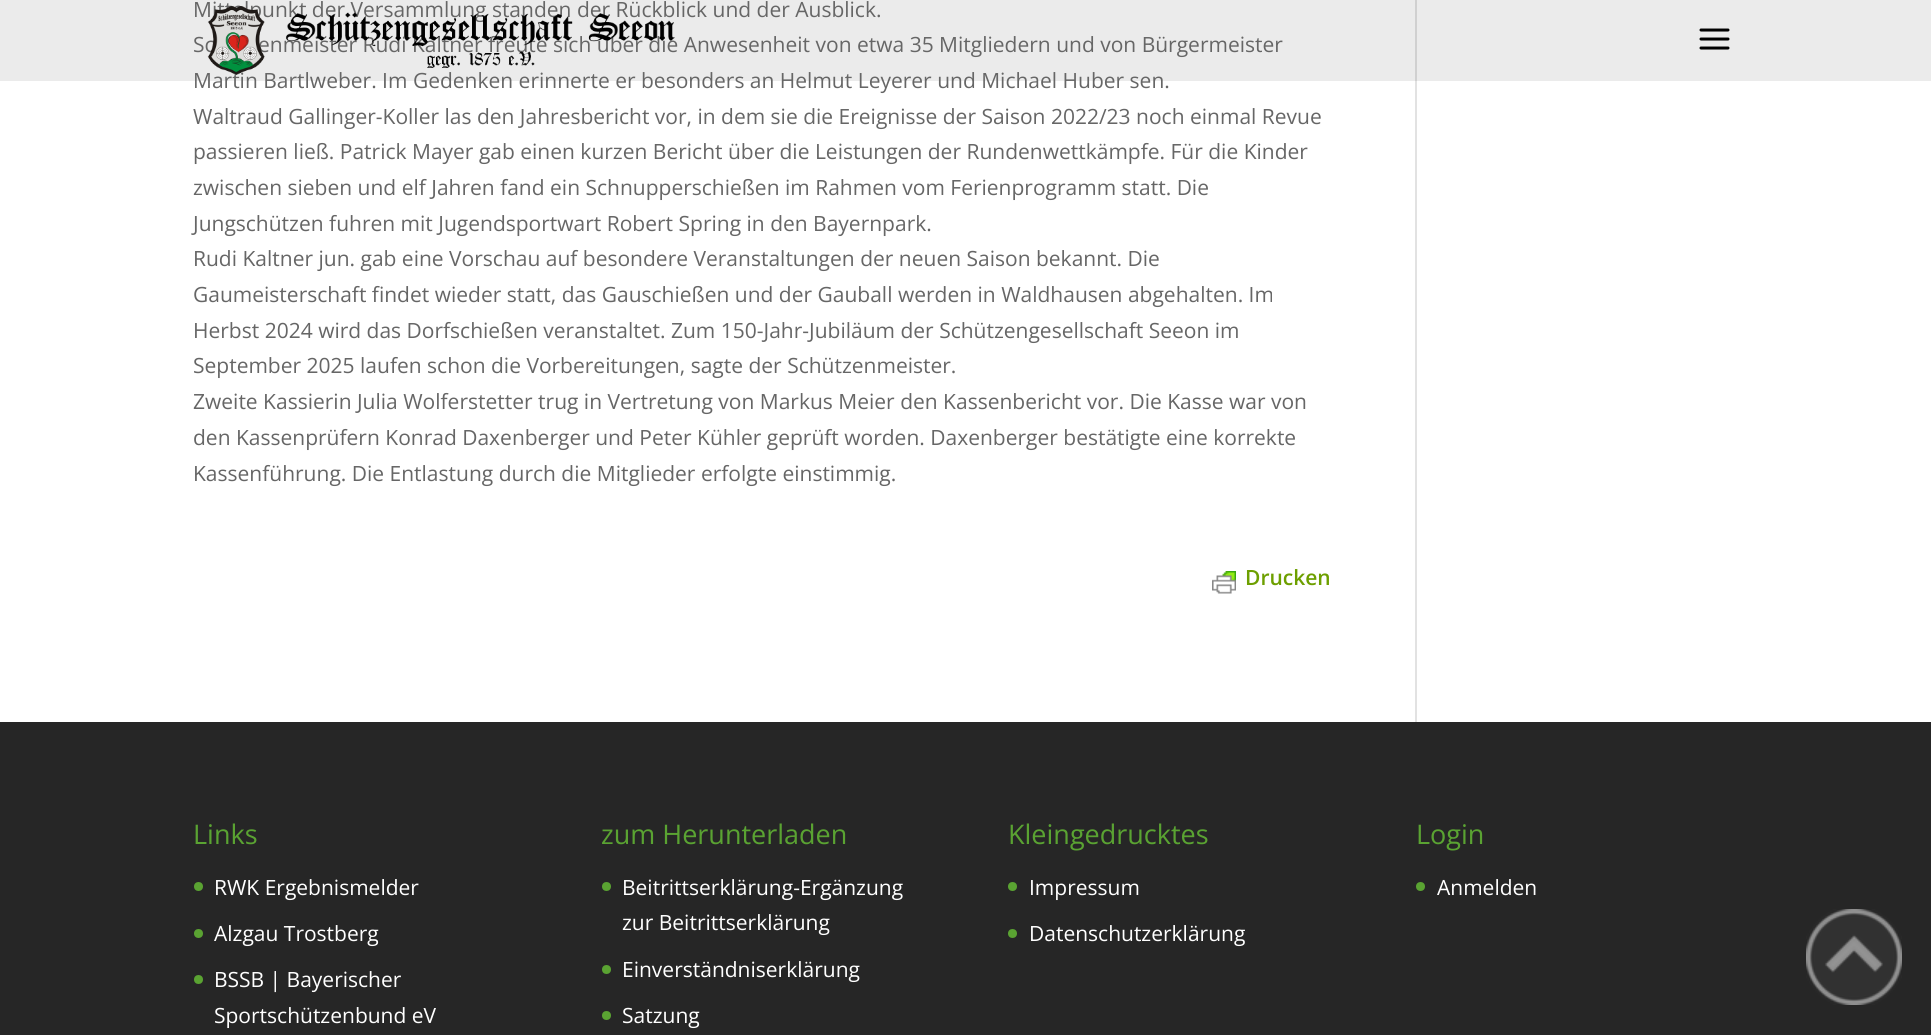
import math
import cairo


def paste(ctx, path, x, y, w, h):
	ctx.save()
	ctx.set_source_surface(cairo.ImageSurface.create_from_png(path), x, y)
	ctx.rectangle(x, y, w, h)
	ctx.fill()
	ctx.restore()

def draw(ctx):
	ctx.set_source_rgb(1, 1, 1)
	ctx.paint()
	ctx.set_source_rgb(0.886, 0.886, 0.886)
	ctx.rectangle(1415, 0, 2, 722)
	ctx.fill()
	ctx.set_source_rgba(0, 0, 0, 0.08)
	ctx.rectangle(0, 0, 1931, 81)
	ctx.fill()
	ctx.select_font_face('Open Sans')
	ctx.set_font_size(21)
	ctx.set_source_rgb(0.4, 0.4, 0.4)
	for x, y, s in [
		(193, 17, 'Mittelpunkt der Versammlung standen der Rückblick und der Ausblick.'),
		(193, 52, 'Sc'),
		(258, 52, 'enmeister Rudi Kaltner freute sich über die Anwesenheit von etwa 35 Mitgliedern und von Bürgermeister'),
		(193, 88, 'Martin Bartlweber. Im Gedenken erinnerte er besonders an Helmut Leyerer und Michael Huber sen.'),
	]:
		ctx.move_to(x, y)
		ctx.show_text(s)
	paste(ctx, 'media/1.png', 207, 6, 468, 69)
	paste(ctx, 'media/2.png', 1699, 28, 31, 22)
	for x, y, s in [
		(193, 124, 'Waltraud Gallinger-Koller las den Jahresbericht vor, in dem sie die Ereignisse der Saison 2022/23 noch einmal Revue'),
		(193, 159, 'passieren ließ. Patrick Mayer gab einen kurzen Bericht über die Leistungen der Rundenwettkämpfe. Für die Kinder'),
		(193, 195, 'zwischen sieben und elf Jahren fand ein Schnupperschießen im Rahmen vom Ferienprogramm statt. Die'),
		(193, 231, 'Jungschützen fuhren mit Jugendsportwart Robert Spring in den Bayernpark.'),
		(193, 266, 'Rudi Kaltner jun. gab eine Vorschau auf besondere Veranstaltungen der neuen Saison bekannt. Die'),
		(193, 302, 'Gaumeisterschaft findet wieder statt, das Gauschießen und der Gauball werden in Waldhausen abgehalten. Im'),
		(193, 338, 'Herbst 2024 wird das Dorfschießen veranstaltet. Zum 150-Jahr-Jubiläum der Schützengesellschaft Seeon im'),
		(193, 373, 'September 2025 laufen schon die Vorbereitungen, sagte der Schützenmeister.'),
		(193, 409, 'Zweite Kassierin Julia Wolferstetter trug in Vertretung von Markus Meier den Kassenbericht vor. Die Kasse war von'),
		(193, 445, 'den Kassenprüfern Konrad Daxenberger und Peter Kühler geprüft worden. Daxenberger bestätigte eine korrekte'),
		(193, 481, 'Kassenführung. Die Entlastung durch die Mitglieder erfolgte einstimmig.'),
	]:
		ctx.move_to(x, y)
		ctx.show_text(s)
	paste(ctx, 'media/3.png', 1212, 571, 24, 23)
	ctx.select_font_face('Open Sans SemiBold')
	ctx.set_source_rgb(0.427, 0.624, 0)
	ctx.move_to(1245, 585)
	ctx.show_text('Drucken')
	ctx.set_source_rgb(0.149, 0.149, 0.149)
	ctx.rectangle(0, 722, 1931, 313)
	ctx.fill()
	ctx.select_font_face('Open Sans')
	ctx.set_font_size(27)
	ctx.set_source_rgb(0.353, 0.639, 0.196)
	ctx.move_to(193, 844)
	ctx.show_text('Links')
	ctx.new_path()
	ctx.arc(198.5, 886.5, 4.5, 0, 2 * math.pi)
	ctx.fill()
	ctx.set_font_size(21)
	ctx.set_source_rgb(1, 1, 1)
	ctx.move_to(214, 895)
	ctx.show_text('RWK Ergebnismelder')
	ctx.set_source_rgb(0.353, 0.639, 0.196)
	ctx.new_path()
	ctx.arc(198.5, 933.5, 4.5, 0, 2 * math.pi)
	ctx.fill()
	ctx.set_source_rgb(1, 1, 1)
	ctx.move_to(214, 941)
	ctx.show_text('Alzgau Trostberg')
	ctx.set_source_rgb(0.353, 0.639, 0.196)
	ctx.new_path()
	ctx.arc(198.5, 979.5, 4.5, 0, 2 * math.pi)
	ctx.fill()
	ctx.set_source_rgb(1, 1, 1)
	ctx.move_to(214, 987)
	ctx.show_text('BSSB | Bayerischer')
	ctx.move_to(214, 1023)
	ctx.show_text('Sportschützenbund eV')
	ctx.set_font_size(27)
	ctx.set_source_rgb(0.353, 0.639, 0.196)
	ctx.move_to(601, 844)
	ctx.show_text('zum Herunterladen')
	ctx.new_path()
	ctx.arc(606.5, 886.5, 4.5, 0, 2 * math.pi)
	ctx.fill()
	ctx.set_font_size(21)
	ctx.set_source_rgb(1, 1, 1)
	ctx.move_to(622, 895)
	ctx.show_text('Beitrittserklärung-Ergänzung')
	ctx.move_to(622, 930)
	ctx.show_text('zur Beitrittserklärung')
	ctx.set_source_rgb(0.353, 0.639, 0.196)
	ctx.new_path()
	ctx.arc(606.5, 969.5, 4.5, 0, 2 * math.pi)
	ctx.fill()
	ctx.set_source_rgb(1, 1, 1)
	ctx.move_to(622, 977)
	ctx.show_text('Einverständniserklärung')
	ctx.set_source_rgb(0.353, 0.639, 0.196)
	ctx.new_path()
	ctx.arc(606.5, 1015.5, 4.5, 0, 2 * math.pi)
	ctx.fill()
	ctx.set_source_rgb(1, 1, 1)
	ctx.move_to(622, 1023)
	ctx.show_text('Satzung')
	ctx.set_font_size(27)
	ctx.set_source_rgb(0.353, 0.639, 0.196)
	ctx.move_to(1008, 844)
	ctx.show_text('Kleingedrucktes')
	ctx.new_path()
	ctx.arc(1012.5, 886.5, 4.5, 0, 2 * math.pi)
	ctx.fill()
	ctx.set_font_size(21)
	ctx.set_source_rgb(1, 1, 1)
	ctx.move_to(1029, 895)
	ctx.show_text('Impressum')
	ctx.set_source_rgb(0.353, 0.639, 0.196)
	ctx.new_path()
	ctx.arc(1012.5, 933.5, 4.5, 0, 2 * math.pi)
	ctx.fill()
	ctx.set_source_rgb(1, 1, 1)
	ctx.move_to(1029, 941)
	ctx.show_text('Datenschutzerklärung')
	ctx.set_font_size(27)
	ctx.set_source_rgb(0.353, 0.639, 0.196)
	ctx.move_to(1416, 844)
	ctx.show_text('Login')
	ctx.new_path()
	ctx.arc(1420.5, 886.5, 4.5, 0, 2 * math.pi)
	ctx.fill()
	ctx.set_font_size(21)
	ctx.set_source_rgb(1, 1, 1)
	ctx.move_to(1437, 895)
	ctx.show_text('Anmelden')
	paste(ctx, 'media/4.png', 1806, 909, 96, 96)


surface = cairo.ImageSurface(cairo.FORMAT_RGB24, 1931, 1035)
ctx = cairo.Context(surface)
options = cairo.FontOptions()
options.set_hint_metrics(cairo.HINT_METRICS_OFF)
options.set_hint_style(cairo.HINT_STYLE_NONE)
ctx.set_font_options(options)
ctx.set_miter_limit(4)
draw(ctx)
surface.write_to_png('image.png')
